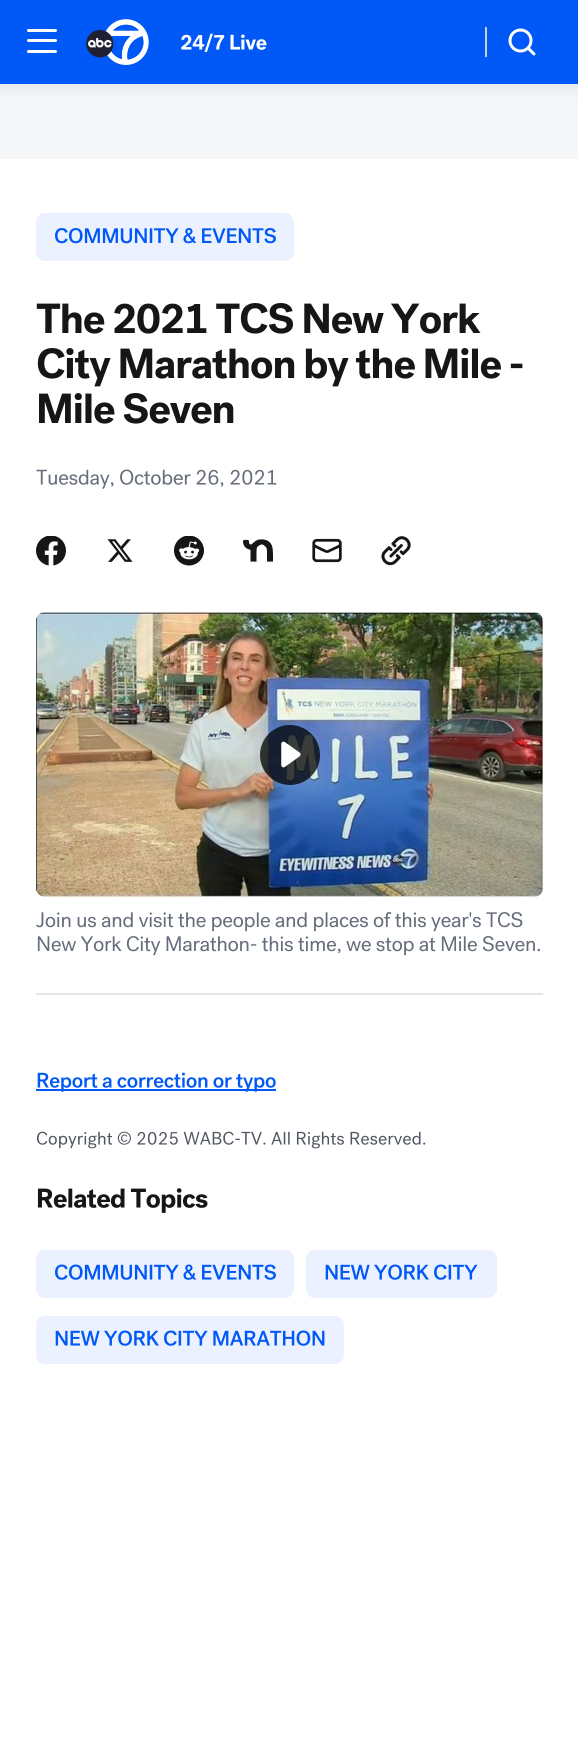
import math
import cairo


def round_path(ctx, x, y, w, h, r):
	ctx.new_sub_path()
	for i, (u, v) in enumerate([(x + w - r, y + h - r), (x + r, y + h - r), (x + r, y + r), (x + w - r, y + r)]):
		ctx.arc(u, v, r, i * math.pi / 2, (i + 1) * math.pi / 2)
	ctx.close_path()

def blur_box(ctx, x, y, w, h, r, blur, alpha):
	ctx.push_group_with_content(cairo.CONTENT_ALPHA)
	ctx.set_operator(cairo.OPERATOR_SOURCE)
	for i in range(15, -16, -2):
		e = blur * i / 6
		if min(w, h) + 2 * e > 0:
			ctx.set_source_rgba(0, 0, 0, alpha * math.erfc((i - 1) / 8.5) / 2)
			round_path(ctx, x - e, y - e, w + 2 * e, h + 2 * e, max(0, min(r + e + blur * .6, min(w, h) / 2 + e)))
			ctx.fill()
	ctx.mask(ctx.pop_group())

def paste(ctx, path, x, y, w, h):
	ctx.save()
	ctx.set_source_surface(cairo.ImageSurface.create_from_png(path), x, y)
	ctx.rectangle(x, y, w, h)
	ctx.fill()
	ctx.restore()

def draw(ctx):
	ctx.set_source_rgb(1, 1, 1)
	ctx.paint()
	ctx.set_source_rgb(0.957, 0.961, 0.965)
	ctx.rectangle(0, 84, 578, 75)
	ctx.fill()
	ctx.set_source_rgb(0, 0, 0)
	blur_box(ctx, 0, 3, 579, 84, 0, 7.5, 0.08)
	ctx.set_source_rgb(0, 0.345, 0.965)
	ctx.rectangle(0, 0, 578, 84)
	ctx.fill()
	ctx.set_source_rgb(1, 1, 1)
	round_path(ctx, 27, 39, 30, 3, 1.5)
	ctx.fill()
	round_path(ctx, 27, 29, 30, 3, 1.5)
	ctx.fill()
	round_path(ctx, 27, 50, 30, 3, 1.5)
	ctx.fill()
	paste(ctx, 'media/1.png', 86, 19, 63, 46)
	paste(ctx, 'media/2.png', 181, 33, 86, 19)
	ctx.set_source_rgb(0.808, 0.812, 0.812)
	ctx.rectangle(485, 27, 2, 30)
	ctx.fill()
	paste(ctx, 'media/3.png', 508, 28, 28, 28)
	ctx.set_source_rgb(0.922, 0.945, 1)
	round_path(ctx, 36, 213, 258, 48, 9)
	ctx.fill()
	paste(ctx, 'media/4.png', 55, 228, 221, 16)
	paste(ctx, 'media/5.png', 36, 303, 445, 31)
	paste(ctx, 'media/6.png', 37, 348, 486, 39)
	paste(ctx, 'media/7.png', 39, 393, 195, 31)
	paste(ctx, 'media/8.png', 36, 469, 241, 20)
	paste(ctx, 'media/9.png', 36, 536, 30, 30)
	paste(ctx, 'media/10.png', 107, 539, 26, 23)
	paste(ctx, 'media/11.png', 174, 536, 30, 30)
	paste(ctx, 'media/12.png', 243, 539, 30, 23)
	paste(ctx, 'media/13.png', 312, 538, 30, 25)
	paste(ctx, 'media/14.png', 381, 536, 30, 30)
	paste(ctx, 'media/15.png', 36, 612, 507, 285)
	paste(ctx, 'media/16.png', 36, 612, 507, 285)
	ctx.set_source_rgba(0, 0, 0, 0.75)
	ctx.arc(290, 755, 30, 0, 2 * math.pi)
	ctx.fill()
	paste(ctx, 'media/17.png', 281, 741, 20, 27)
	paste(ctx, 'media/18.png', 36, 912, 487, 20)
	paste(ctx, 'media/19.png', 37, 936, 503, 20)
	ctx.set_source_rgb(0.898, 0.902, 0.914)
	ctx.rectangle(36, 993, 507, 2)
	ctx.fill()
	ctx.set_source_rgb(0, 0.345, 0.965)
	ctx.rectangle(36, 1089, 240, 2)
	ctx.fill()
	paste(ctx, 'media/20.png', 37, 1072, 239, 20)
	paste(ctx, 'media/21.png', 36, 1131, 390, 18)
	paste(ctx, 'media/22.png', 37, 1188, 171, 25)
	ctx.set_source_rgb(0.922, 0.945, 1)
	round_path(ctx, 36, 1250, 258, 48, 9)
	ctx.fill()
	paste(ctx, 'media/23.png', 55, 1264, 221, 16)
	round_path(ctx, 306, 1250, 191, 48, 9)
	ctx.fill()
	paste(ctx, 'media/24.png', 325, 1264, 153, 16)
	round_path(ctx, 36, 1316, 308, 48, 9)
	ctx.fill()
	paste(ctx, 'media/25.png', 55, 1330, 270, 16)


surface = cairo.ImageSurface(cairo.FORMAT_RGB24, 578, 1752)
ctx = cairo.Context(surface)
options = cairo.FontOptions()
options.set_hint_metrics(cairo.HINT_METRICS_OFF)
options.set_hint_style(cairo.HINT_STYLE_NONE)
ctx.set_font_options(options)
ctx.set_miter_limit(4)
draw(ctx)
surface.write_to_png('image.png')
